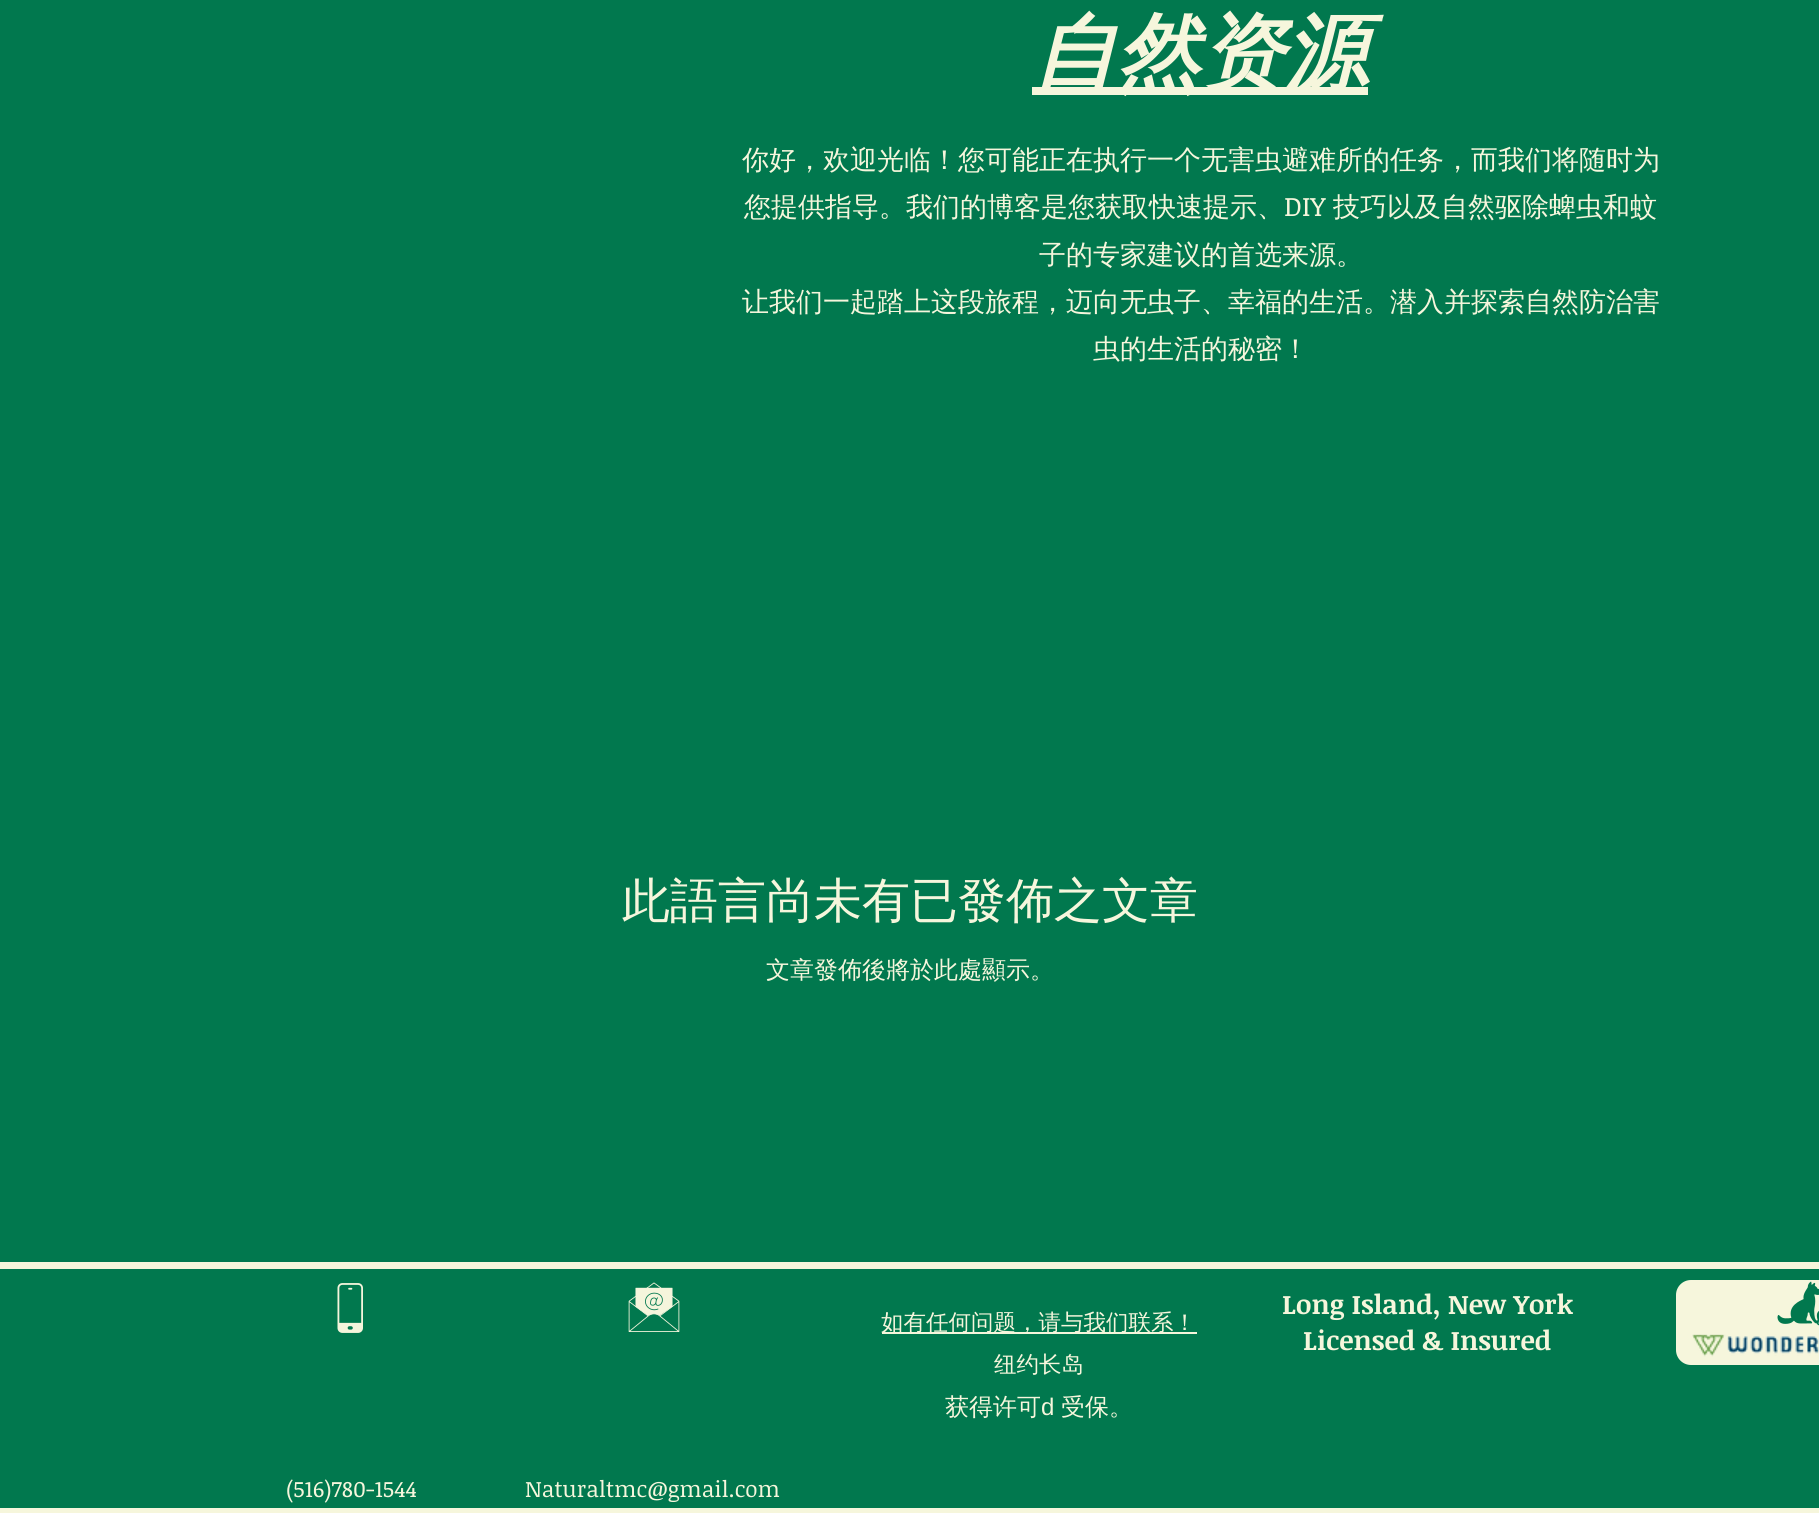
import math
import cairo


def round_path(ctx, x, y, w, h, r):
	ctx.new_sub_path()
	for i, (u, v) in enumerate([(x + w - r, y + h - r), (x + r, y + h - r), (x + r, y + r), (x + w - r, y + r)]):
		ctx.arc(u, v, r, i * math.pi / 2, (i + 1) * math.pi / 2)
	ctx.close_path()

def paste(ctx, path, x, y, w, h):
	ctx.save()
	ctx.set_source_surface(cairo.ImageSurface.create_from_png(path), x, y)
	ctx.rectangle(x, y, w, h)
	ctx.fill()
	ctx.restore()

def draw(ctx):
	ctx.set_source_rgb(0.004, 0.471, 0.306)
	ctx.paint()
	ctx.set_source_rgb(0.961, 0.961, 0.863)
	ctx.rectangle(1032, 87, 336, 8)
	ctx.fill()
	ctx.select_font_face('WenQuanYi Zen Hei', cairo.FONT_SLANT_ITALIC, cairo.FONT_WEIGHT_BOLD)
	ctx.set_font_size(84)
	ctx.move_to(1032, 82)
	ctx.show_text('自然资源')
	ctx.select_font_face('WenQuanYi Zen Hei Medium')
	ctx.set_font_size(27)
	ctx.move_to(742, 169)
	ctx.show_text('你好，欢迎光临！您可能正在执行一个无害虫避难所的任务，而我们将随时为')
	ctx.move_to(744, 216)
	ctx.show_text('您提供指导。我们的博客是您获取快速提示、')
	ctx.select_font_face('Noticia Text')
	ctx.move_to(1284, 216)
	ctx.show_text('DIY')
	ctx.select_font_face('WenQuanYi Zen Hei Medium')
	for x, y, s in [
		(1333, 216, '技巧以及自然驱除蜱虫和蚊'),
		(1039, 264, '子的专家建议的首选来源。'),
		(742, 311, '让我们一起踏上这段旅程，迈向无虫子、幸福的生活。潜入并探索自然防治害'),
		(1093, 358, '虫的生活的秘密！'),
	]:
		ctx.move_to(x, y)
		ctx.show_text(s)
	ctx.set_font_size(48)
	ctx.move_to(622, 917)
	ctx.show_text('此語言尚未有已發佈之文章')
	ctx.set_font_size(24)
	ctx.move_to(766, 978)
	ctx.show_text('文章發佈後將於此處顯示。')
	ctx.rectangle(0, 1262, 1819, 7)
	ctx.fill()
	paste(ctx, 'media/1.png', 337, 1283, 26, 50)
	paste(ctx, 'media/2.png', 628, 1282, 52, 50)
	ctx.rectangle(882, 1332, 315, 2)
	ctx.fill()
	ctx.set_font_size(22.5)
	ctx.move_to(881, 1330)
	ctx.show_text('如有任何问题，请与我们联系！')
	ctx.move_to(994, 1372)
	ctx.show_text('纽约长岛')
	ctx.set_font_size(24)
	ctx.move_to(945, 1415)
	ctx.show_text('获得许可')
	ctx.select_font_face('Liberation Sans')
	ctx.move_to(1041, 1415)
	ctx.show_text('d')
	ctx.select_font_face('WenQuanYi Zen Hei Medium')
	ctx.move_to(1061, 1415)
	ctx.show_text('受保。')
	ctx.select_font_face('Noticia Text', cairo.FONT_SLANT_NORMAL, cairo.FONT_WEIGHT_BOLD)
	ctx.set_font_size(27)
	ctx.move_to(1282, 1314)
	ctx.show_text('Long Island, New York')
	ctx.move_to(1303, 1350)
	ctx.show_text('Licensed & Insured')
	round_path(ctx, 1672, 1276, 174, 93, 19)
	ctx.fill_preserve()
	ctx.set_source_rgb(0.004, 0.471, 0.306)
	ctx.set_line_width(8)
	ctx.stroke()
	paste(ctx, 'media/3.png', 1777, 1281, 42, 43)
	paste(ctx, 'media/4.png', 1816, 1311, 3, 15)
	paste(ctx, 'media/5.png', 1692, 1334, 127, 23)
	ctx.select_font_face('Noticia Text')
	ctx.set_font_size(22.5)
	ctx.set_source_rgb(0.961, 0.961, 0.863)
	ctx.move_to(286, 1497)
	ctx.show_text('(516)780-1544')
	ctx.move_to(525, 1497)
	ctx.show_text('Naturaltmc@gmail.com')
	ctx.rectangle(0, 1508, 1819, 5)
	ctx.fill()


surface = cairo.ImageSurface(cairo.FORMAT_RGB24, 1819, 1513)
ctx = cairo.Context(surface)
options = cairo.FontOptions()
options.set_hint_metrics(cairo.HINT_METRICS_OFF)
options.set_hint_style(cairo.HINT_STYLE_NONE)
ctx.set_font_options(options)
ctx.set_miter_limit(4)
draw(ctx)
surface.write_to_png('image.png')
